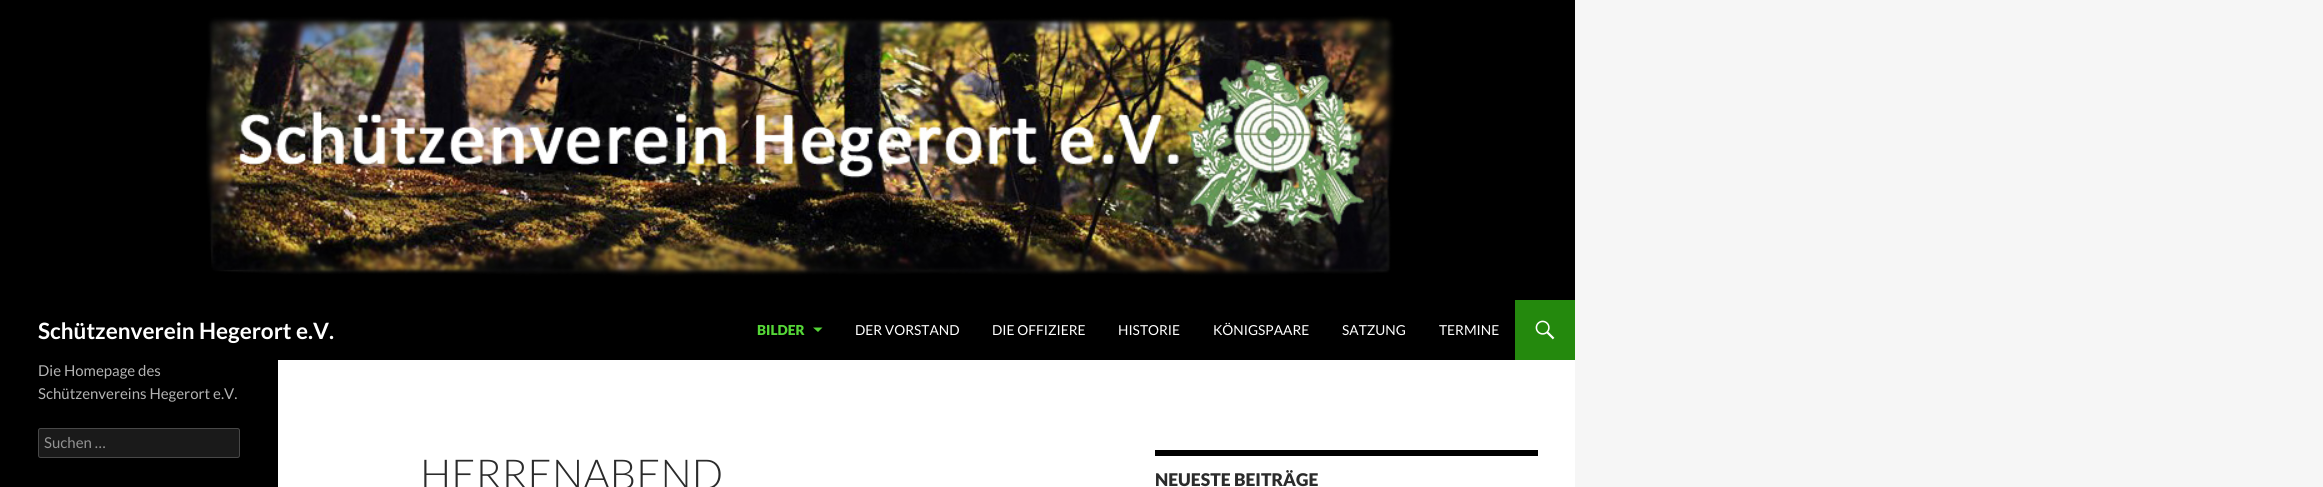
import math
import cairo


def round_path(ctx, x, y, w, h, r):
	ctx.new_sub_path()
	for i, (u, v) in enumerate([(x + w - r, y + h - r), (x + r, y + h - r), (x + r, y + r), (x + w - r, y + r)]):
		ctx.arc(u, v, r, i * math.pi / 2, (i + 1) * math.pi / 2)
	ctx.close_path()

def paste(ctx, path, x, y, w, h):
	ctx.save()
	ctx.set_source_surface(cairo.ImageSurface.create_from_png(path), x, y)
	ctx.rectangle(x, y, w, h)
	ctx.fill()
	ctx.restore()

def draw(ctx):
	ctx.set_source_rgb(0.961, 0.961, 0.961)
	ctx.paint()
	ctx.set_source_rgb(1, 1, 1)
	ctx.rectangle(278, 360, 1297, 127)
	ctx.fill()
	ctx.set_source_rgb(0, 0, 0)
	ctx.rectangle(0, 0, 278, 487)
	ctx.fill()
	paste(ctx, 'media/1.png', 206, 0, 1369, 300)
	ctx.rectangle(278, 300, 1237, 60)
	ctx.fill()
	ctx.select_font_face('Lato', cairo.FONT_SLANT_NORMAL, cairo.FONT_WEIGHT_BOLD)
	ctx.set_font_size(22.5)
	ctx.set_source_rgb(1, 1, 1)
	ctx.move_to(38, 339)
	ctx.show_text('Schützenverein Hegerort e.V.')
	ctx.select_font_face('Lato Black')
	ctx.set_font_size(13.75)
	ctx.set_source_rgb(0.333, 0.843, 0.216)
	ctx.move_to(757, 335)
	ctx.show_text('BILDER')
	ctx.new_path()
	ctx.move_to(813, 327.5)
	ctx.line_to(818, 332)
	ctx.line_to(822.5, 327.5)
	ctx.close_path()
	ctx.fill()
	ctx.select_font_face('Lato')
	ctx.set_source_rgb(1, 1, 1)
	for x, y, s in [
		(855, 335, 'DER VORSTAND'),
		(992, 335, 'DIE OFFIZIERE'),
		(1118, 335, 'HISTORIE'),
		(1213, 335, 'KÖNIGSPAARE'),
		(1342, 335, 'SATZUNG'),
		(1439, 335, 'TERMINE'),
	]:
		ctx.move_to(x, y)
		ctx.show_text(s)
	ctx.set_source_rgb(0.141, 0.537, 0.051)
	ctx.rectangle(1515, 300, 60, 60)
	ctx.fill()
	paste(ctx, 'media/2.png', 1535, 320, 20, 20)
	ctx.set_font_size(15)
	ctx.set_source_rgb(0.702, 0.702, 0.702)
	ctx.move_to(38, 376)
	ctx.show_text('Die Homepage des')
	ctx.move_to(38, 399)
	ctx.show_text('Schützenvereins Hegerort e.V.')
	ctx.set_source_rgb(0.102, 0.102, 0.102)
	round_path(ctx, 38, 428, 202, 30, 2.5)
	ctx.fill()
	round_path(ctx, 38.5, 428.5, 201, 29, 2)
	ctx.set_source_rgba(1, 1, 1, 0.2)
	ctx.set_line_width(1)
	ctx.stroke()
	ctx.set_source_rgb(0.576, 0.576, 0.576)
	ctx.move_to(44, 448)
	ctx.show_text('Suchen …')
	ctx.select_font_face('Lato Light')
	ctx.set_font_size(41.25)
	ctx.set_source_rgb(0.169, 0.169, 0.169)
	ctx.move_to(420, 489)
	ctx.show_text('HERRENABEND')
	ctx.set_source_rgb(0, 0, 0)
	ctx.rectangle(1155, 450, 383, 6)
	ctx.fill()
	ctx.select_font_face('Lato Black')
	ctx.set_font_size(17.5)
	ctx.set_source_rgb(0.169, 0.169, 0.169)
	ctx.move_to(1155, 486)
	ctx.show_text('NEUESTE BEITRÄGE')


surface = cairo.ImageSurface(cairo.FORMAT_RGB24, 2323, 487)
ctx = cairo.Context(surface)
options = cairo.FontOptions()
options.set_hint_metrics(cairo.HINT_METRICS_OFF)
options.set_hint_style(cairo.HINT_STYLE_NONE)
ctx.set_font_options(options)
ctx.set_miter_limit(4)
draw(ctx)
surface.write_to_png('image.png')
